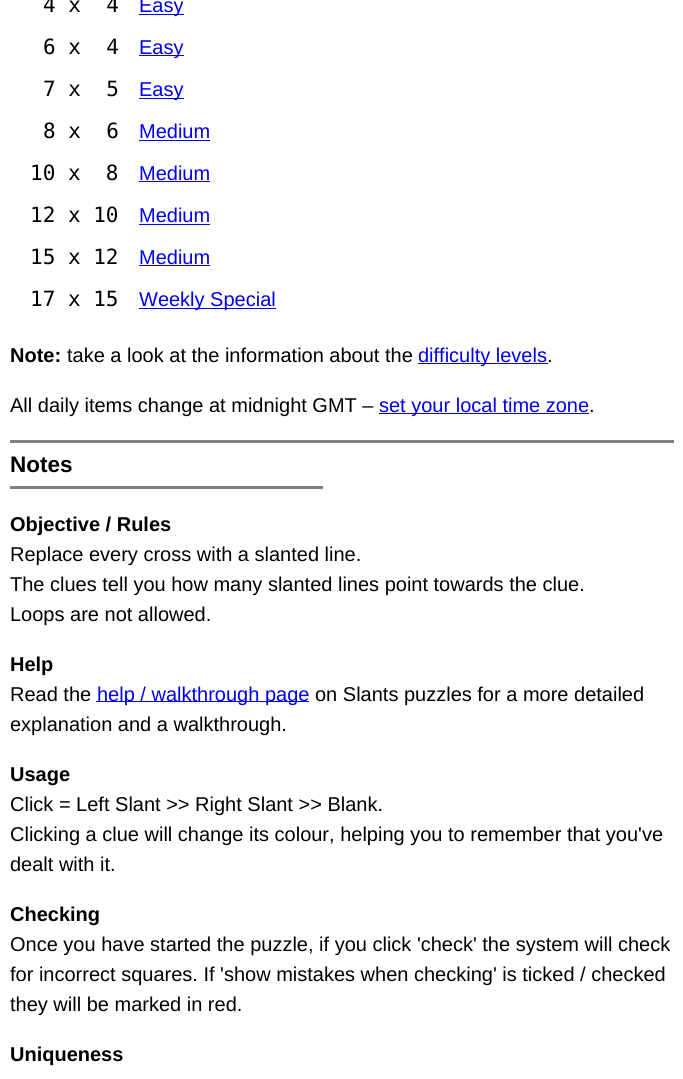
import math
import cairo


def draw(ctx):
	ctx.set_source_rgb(1, 1, 1)
	ctx.paint()
	ctx.select_font_face('DejaVu Sans Mono')
	ctx.set_font_size(21)
	ctx.set_source_rgb(0, 0, 0)
	ctx.move_to(43, 12)
	ctx.show_text('4 x  4')
	ctx.set_source_rgb(0, 0, 0.933)
	ctx.rectangle(139, 14, 45, 1)
	ctx.fill()
	ctx.select_font_face('Liberation Sans')
	ctx.set_font_size(20)
	ctx.move_to(139, 12)
	ctx.show_text('Easy')
	ctx.select_font_face('DejaVu Sans Mono')
	ctx.set_font_size(21)
	ctx.set_source_rgb(0, 0, 0)
	ctx.move_to(43, 54)
	ctx.show_text('6 x  4')
	ctx.set_source_rgb(0, 0, 0.933)
	ctx.rectangle(139, 55, 45, 1)
	ctx.fill()
	ctx.select_font_face('Liberation Sans')
	ctx.set_font_size(20)
	ctx.move_to(139, 54)
	ctx.show_text('Easy')
	ctx.select_font_face('DejaVu Sans Mono')
	ctx.set_font_size(21)
	ctx.set_source_rgb(0, 0, 0)
	ctx.move_to(43, 96)
	ctx.show_text('7 x  5')
	ctx.set_source_rgb(0, 0, 0.933)
	ctx.rectangle(139, 98, 45, 1)
	ctx.fill()
	ctx.select_font_face('Liberation Sans')
	ctx.set_font_size(20)
	ctx.move_to(139, 96)
	ctx.show_text('Easy')
	ctx.select_font_face('DejaVu Sans Mono')
	ctx.set_font_size(21)
	ctx.set_source_rgb(0, 0, 0)
	ctx.move_to(43, 138)
	ctx.show_text('8 x  6')
	ctx.select_font_face('Liberation Sans')
	ctx.set_font_size(20)
	ctx.set_source_rgb(0, 0, 0.933)
	ctx.move_to(139, 138)
	ctx.show_text('Medium')
	ctx.rectangle(139, 140, 71, 1)
	ctx.fill()
	ctx.select_font_face('DejaVu Sans Mono')
	ctx.set_font_size(21)
	ctx.set_source_rgb(0, 0, 0)
	ctx.move_to(30, 180)
	ctx.show_text('10 x  8')
	ctx.select_font_face('Liberation Sans')
	ctx.set_font_size(20)
	ctx.set_source_rgb(0, 0, 0.933)
	ctx.move_to(139, 180)
	ctx.show_text('Medium')
	ctx.rectangle(139, 181, 71, 1)
	ctx.fill()
	ctx.select_font_face('DejaVu Sans Mono')
	ctx.set_font_size(21)
	ctx.set_source_rgb(0, 0, 0)
	ctx.move_to(30, 222)
	ctx.show_text('12 x 10')
	ctx.select_font_face('Liberation Sans')
	ctx.set_font_size(20)
	ctx.set_source_rgb(0, 0, 0.933)
	ctx.move_to(139, 222)
	ctx.show_text('Medium')
	ctx.rectangle(139, 224, 71, 1)
	ctx.fill()
	ctx.select_font_face('DejaVu Sans Mono')
	ctx.set_font_size(21)
	ctx.set_source_rgb(0, 0, 0)
	ctx.move_to(30, 264)
	ctx.show_text('15 x 12')
	ctx.select_font_face('Liberation Sans')
	ctx.set_font_size(20)
	ctx.set_source_rgb(0, 0, 0.933)
	ctx.move_to(139, 264)
	ctx.show_text('Medium')
	ctx.rectangle(139, 265, 71, 1)
	ctx.fill()
	ctx.select_font_face('DejaVu Sans Mono')
	ctx.set_font_size(21)
	ctx.set_source_rgb(0, 0, 0)
	ctx.move_to(30, 306)
	ctx.show_text('17 x 15')
	ctx.set_source_rgb(0, 0, 0.933)
	ctx.rectangle(139, 308, 137, 1)
	ctx.fill()
	ctx.select_font_face('Liberation Sans')
	ctx.set_font_size(20)
	ctx.move_to(139, 306)
	ctx.show_text('Weekly Special')
	ctx.select_font_face('Liberation Sans', cairo.FONT_SLANT_NORMAL, cairo.FONT_WEIGHT_BOLD)
	ctx.set_source_rgb(0, 0, 0)
	ctx.move_to(10, 362)
	ctx.show_text('Note:')
	ctx.select_font_face('Liberation Sans')
	ctx.move_to(67, 362)
	ctx.show_text('take a look at the information about the')
	ctx.set_source_rgb(0, 0, 0.933)
	ctx.rectangle(418, 363, 130, 1)
	ctx.fill()
	ctx.move_to(418, 362)
	ctx.show_text('difficulty levels')
	ctx.set_source_rgb(0, 0, 0)
	ctx.move_to(547, 362)
	ctx.show_text('.')
	ctx.move_to(10, 412)
	ctx.show_text('All daily items change at midnight GMT –')
	ctx.set_source_rgb(0, 0, 0.933)
	ctx.rectangle(379, 413, 210, 1)
	ctx.fill()
	ctx.move_to(379, 412)
	ctx.show_text('set your local time zone')
	ctx.set_source_rgb(0, 0, 0)
	ctx.move_to(589, 412)
	ctx.show_text('.')
	ctx.set_source_rgb(0.502, 0.502, 0.502)
	ctx.rectangle(10, 440, 664, 3)
	ctx.fill()
	ctx.select_font_face('Liberation Sans', cairo.FONT_SLANT_NORMAL, cairo.FONT_WEIGHT_BOLD)
	ctx.set_font_size(22.5)
	ctx.set_source_rgb(0, 0, 0)
	ctx.move_to(10, 472)
	ctx.show_text('Notes')
	ctx.set_source_rgb(0.502, 0.502, 0.502)
	ctx.rectangle(10, 486, 313, 3)
	ctx.fill()
	ctx.set_font_size(20)
	ctx.set_source_rgb(0, 0, 0)
	ctx.move_to(10, 531)
	ctx.show_text('Objective / Rules')
	ctx.select_font_face('Liberation Sans')
	for x, y, s in [
		(10, 561, 'Replace every cross with a slanted line.'),
		(10, 591, 'The clues tell you how many slanted lines point towards the clue.'),
		(10, 621, 'Loops are not allowed.'),
	]:
		ctx.move_to(x, y)
		ctx.show_text(s)
	ctx.select_font_face('Liberation Sans', cairo.FONT_SLANT_NORMAL, cairo.FONT_WEIGHT_BOLD)
	ctx.move_to(10, 671)
	ctx.show_text('Help')
	ctx.select_font_face('Liberation Sans')
	ctx.move_to(10, 701)
	ctx.show_text('Read the')
	ctx.set_source_rgb(0, 0, 0.933)
	ctx.rectangle(96, 701, 213, 1)
	ctx.fill()
	ctx.move_to(97, 701)
	ctx.show_text('help / walkthrough page')
	ctx.set_source_rgb(0, 0, 0)
	ctx.move_to(315, 701)
	ctx.show_text('on Slants puzzles for a more detailed')
	ctx.move_to(10, 731)
	ctx.show_text('explanation and a walkthrough.')
	ctx.select_font_face('Liberation Sans', cairo.FONT_SLANT_NORMAL, cairo.FONT_WEIGHT_BOLD)
	ctx.move_to(10, 781)
	ctx.show_text('Usage')
	ctx.select_font_face('Liberation Sans')
	for x, y, s in [
		(10, 811, 'Click = Left Slant >> Right Slant >> Blank.'),
		(10, 841, 'Clicking a clue will change its colour, helping you to remember that you\'ve'),
		(10, 871, 'dealt with it.'),
	]:
		ctx.move_to(x, y)
		ctx.show_text(s)
	ctx.select_font_face('Liberation Sans', cairo.FONT_SLANT_NORMAL, cairo.FONT_WEIGHT_BOLD)
	ctx.move_to(10, 921)
	ctx.show_text('Checking')
	ctx.select_font_face('Liberation Sans')
	for x, y, s in [
		(10, 951, 'Once you have started the puzzle, if you click \'check\' the system will check'),
		(10, 981, 'for incorrect squares. If \'show mistakes when checking\' is ticked / checked'),
		(10, 1011, 'they will be marked in red.'),
	]:
		ctx.move_to(x, y)
		ctx.show_text(s)
	ctx.select_font_face('Liberation Sans', cairo.FONT_SLANT_NORMAL, cairo.FONT_WEIGHT_BOLD)
	ctx.move_to(10, 1061)
	ctx.show_text('Uniqueness')


surface = cairo.ImageSurface(cairo.FORMAT_RGB24, 683, 1079)
ctx = cairo.Context(surface)
options = cairo.FontOptions()
options.set_hint_metrics(cairo.HINT_METRICS_OFF)
options.set_hint_style(cairo.HINT_STYLE_NONE)
ctx.set_font_options(options)
ctx.set_miter_limit(4)
draw(ctx)
surface.write_to_png('image.png')
